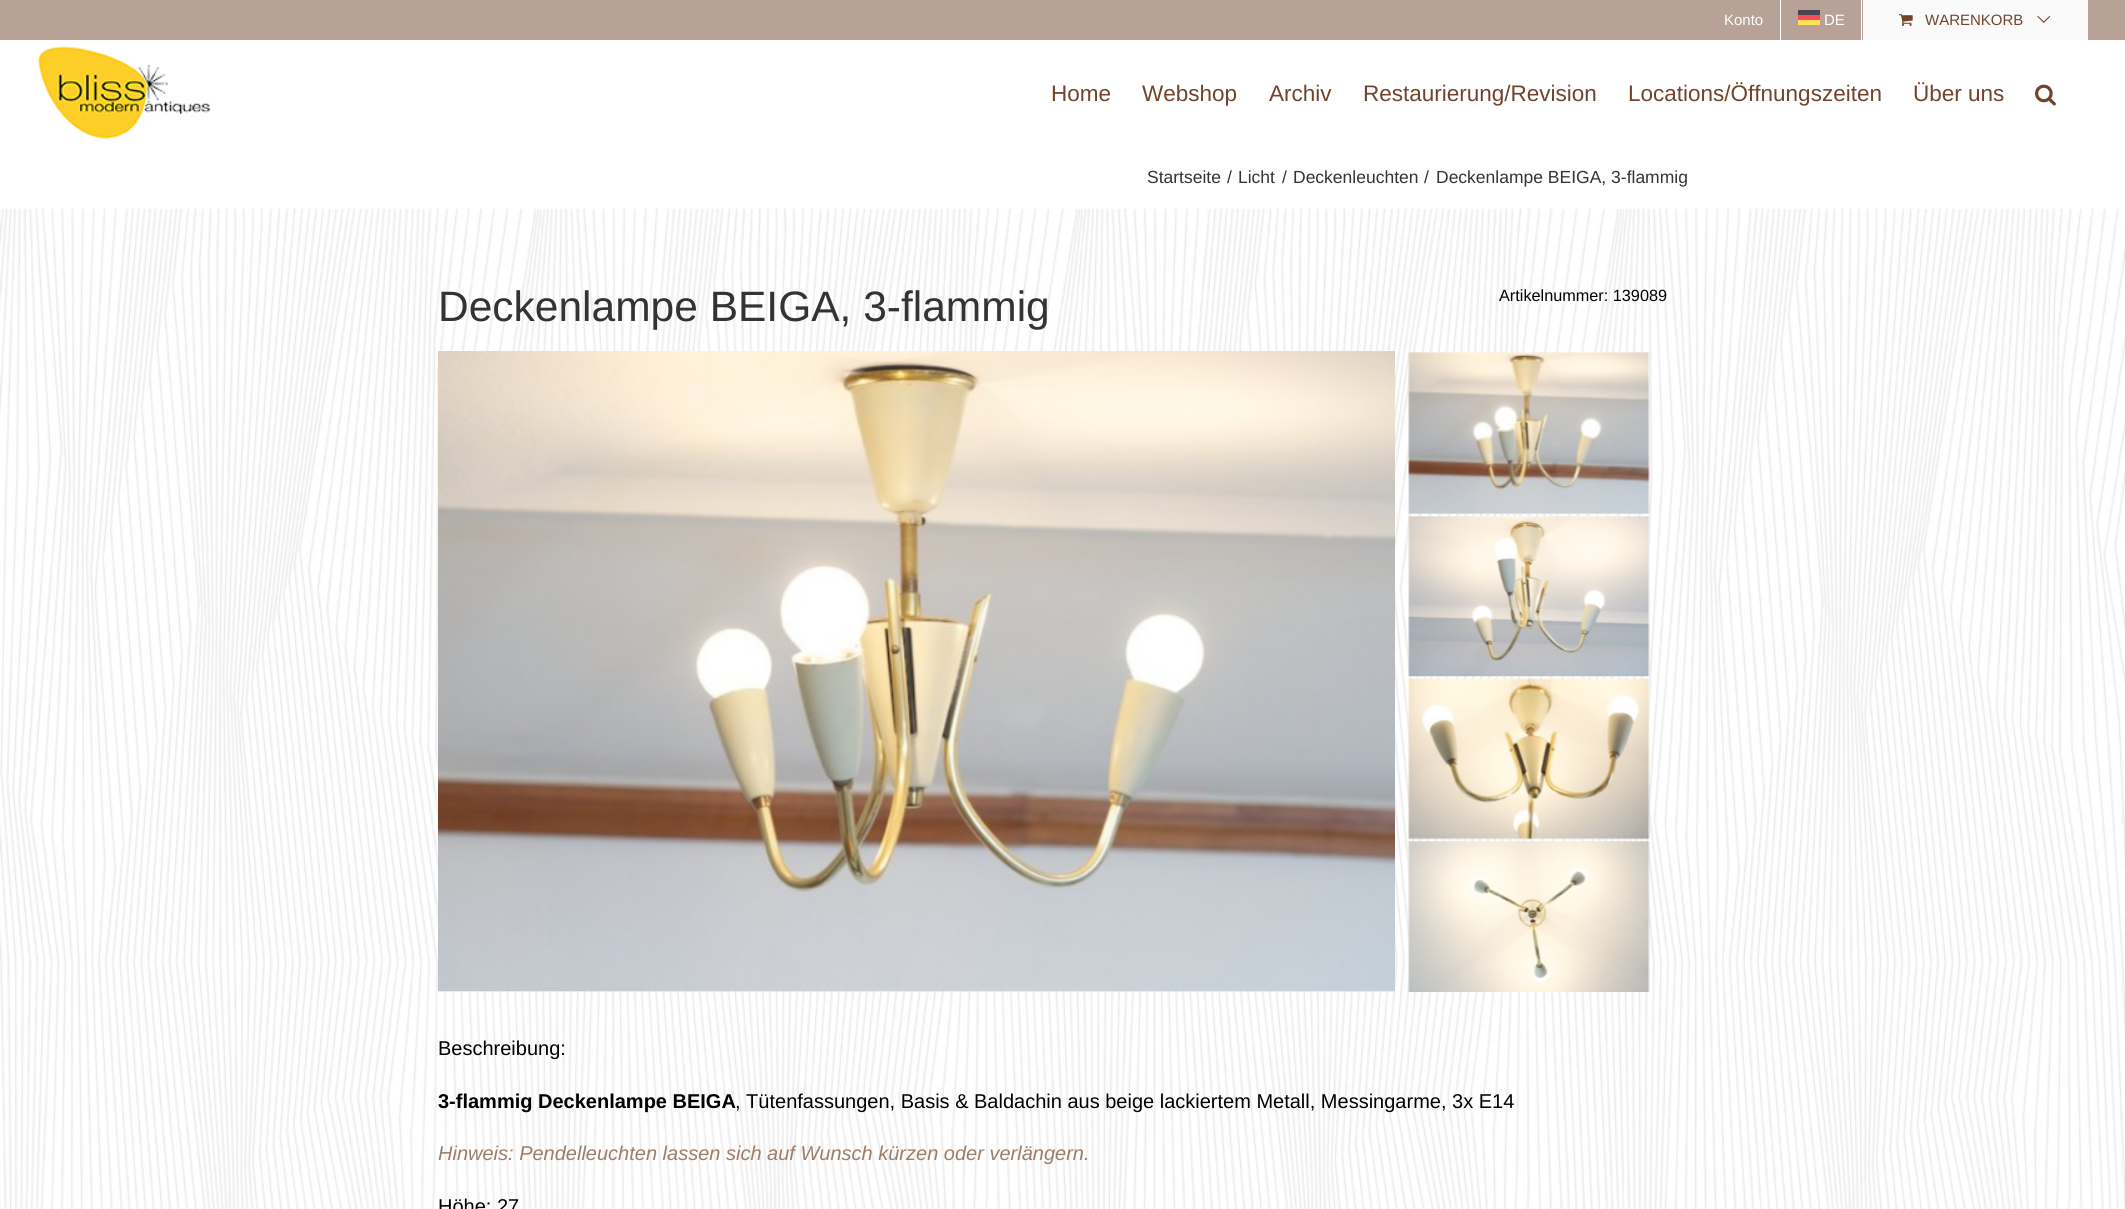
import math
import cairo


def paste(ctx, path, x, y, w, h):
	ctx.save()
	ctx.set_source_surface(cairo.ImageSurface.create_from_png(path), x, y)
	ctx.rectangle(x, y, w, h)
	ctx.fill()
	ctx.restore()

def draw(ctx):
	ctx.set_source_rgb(1, 1, 1)
	ctx.paint()
	ctx.set_source_rgb(0.722, 0.631, 0.588)
	ctx.rectangle(0, 0, 2125, 40)
	ctx.fill()
	ctx.select_font_face('Liberation Sans')
	ctx.set_font_size(15)
	ctx.set_source_rgb(1, 1, 1)
	ctx.move_to(1724, 25)
	ctx.show_text('Konto')
	ctx.rectangle(1780, 0, 1, 40)
	ctx.fill()
	ctx.set_source_rgb(0.275, 0.275, 0.333)
	ctx.rectangle(1798, 10, 22, 5)
	ctx.fill()
	ctx.set_source_rgb(1, 0.294, 0.333)
	ctx.rectangle(1798, 15, 22, 5)
	ctx.fill()
	ctx.set_source_rgb(1, 1, 1)
	ctx.move_to(1824, 25)
	ctx.show_text('DE')
	ctx.set_source_rgb(1, 0.882, 0.353)
	ctx.rectangle(1798, 20, 22, 5)
	ctx.fill()
	ctx.set_source_rgb(1, 1, 1)
	ctx.rectangle(1861, 0, 1, 40)
	ctx.fill()
	ctx.set_source_rgb(0.98, 0.98, 0.98)
	ctx.rectangle(1863, 0, 225, 40)
	ctx.fill()
	paste(ctx, 'media/1.png', 1898, 14, 15, 12)
	ctx.set_source_rgb(0.443, 0.263, 0.173)
	ctx.move_to(1925, 25)
	ctx.show_text('WARENKORB')
	paste(ctx, 'media/2.png', 2037, 16, 14, 7)
	paste(ctx, 'media/3.png', 37, 46, 173, 93)
	ctx.set_font_size(22.5)
	for x, y, s in [
		(1051, 101, 'Home'),
		(1142, 101, 'Webshop'),
		(1269, 101, 'Archiv'),
		(1363, 101, 'Restaurierung/Revision'),
		(1628, 101, 'Locations/Öffnungszeiten'),
		(1913, 101, 'Über uns'),
	]:
		ctx.move_to(x, y)
		ctx.show_text(s)
	paste(ctx, 'media/4.png', 2035, 84, 21, 22)
	ctx.set_font_size(17.5)
	ctx.set_source_rgb(0.2, 0.2, 0.2)
	for x, y, s in [
		(1147, 183, 'Startseite'),
		(1227, 183, '/'),
		(1238, 183, 'Licht'),
		(1282, 183, '/'),
		(1293, 183, 'Deckenleuchten'),
		(1424, 183, '/'),
		(1436, 183, 'Deckenlampe BEIGA, 3-flammig'),
	]:
		ctx.move_to(x, y)
		ctx.show_text(s)
	paste(ctx, 'media/5.png', 0, 208, 2125, 1001)
	ctx.set_font_size(42.5)
	ctx.move_to(438, 321)
	ctx.show_text('Deckenlampe BEIGA, 3-flammig')
	ctx.set_font_size(16.25)
	ctx.set_source_rgb(0, 0, 0)
	ctx.move_to(1499, 301)
	ctx.show_text('Artikelnummer: 139089')
	paste(ctx, 'media/6.png', 438, 351, 957, 641)
	paste(ctx, 'media/7.png', 1408, 352, 242, 163)
	paste(ctx, 'media/8.png', 1408, 516, 242, 161)
	paste(ctx, 'media/9.png', 1408, 678, 242, 162)
	paste(ctx, 'media/10.png', 1408, 841, 242, 151)
	ctx.set_font_size(20)
	ctx.move_to(438, 1055)
	ctx.show_text('Beschreibung:')
	ctx.select_font_face('Liberation Sans', cairo.FONT_SLANT_NORMAL, cairo.FONT_WEIGHT_BOLD)
	ctx.move_to(438, 1108)
	ctx.show_text('3-flammig Deckenlampe BEIGA')
	ctx.select_font_face('Liberation Sans')
	ctx.move_to(735, 1108)
	ctx.show_text(', Tütenfassungen, Basis & Baldachin aus beige lackiertem Metall, Messingarme, 3x E14')
	ctx.select_font_face('Liberation Sans', cairo.FONT_SLANT_ITALIC)
	ctx.set_source_rgb(0.612, 0.494, 0.408)
	ctx.move_to(438, 1160)
	ctx.show_text('Hinweis: Pendelleuchten lassen sich auf Wunsch kürzen oder verlängern.')
	ctx.select_font_face('Liberation Sans')
	ctx.set_source_rgb(0, 0, 0)
	ctx.move_to(438, 1213)
	ctx.show_text('Höhe: 27')


surface = cairo.ImageSurface(cairo.FORMAT_RGB24, 2125, 1209)
ctx = cairo.Context(surface)
options = cairo.FontOptions()
options.set_hint_metrics(cairo.HINT_METRICS_OFF)
options.set_hint_style(cairo.HINT_STYLE_NONE)
ctx.set_font_options(options)
ctx.set_miter_limit(4)
draw(ctx)
surface.write_to_png('image.png')
